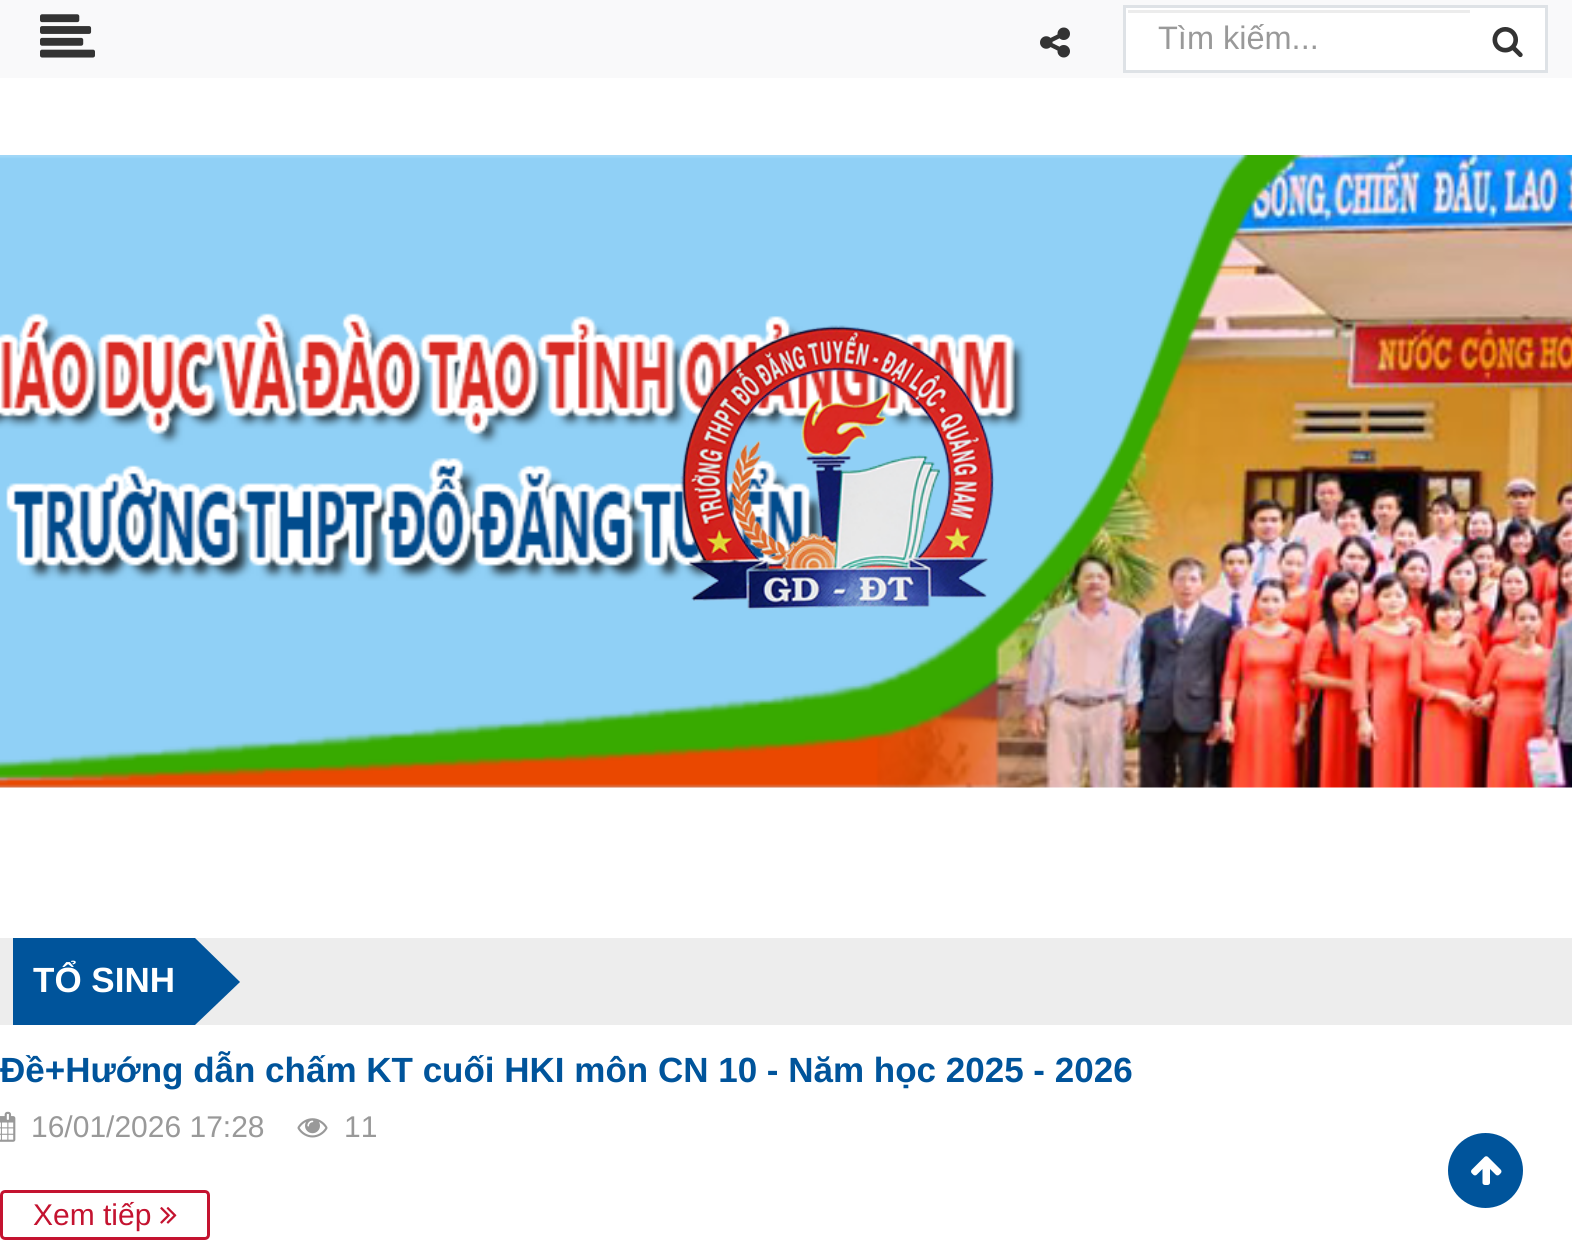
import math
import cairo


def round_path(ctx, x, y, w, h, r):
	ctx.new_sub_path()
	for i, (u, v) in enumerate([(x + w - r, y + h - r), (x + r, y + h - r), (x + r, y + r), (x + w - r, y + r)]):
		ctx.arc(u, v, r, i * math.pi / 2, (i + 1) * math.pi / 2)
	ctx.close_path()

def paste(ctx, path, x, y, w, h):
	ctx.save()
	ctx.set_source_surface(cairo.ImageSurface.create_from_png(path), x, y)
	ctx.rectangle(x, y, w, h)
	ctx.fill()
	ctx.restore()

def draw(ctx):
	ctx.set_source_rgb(1, 1, 1)
	ctx.paint()
	ctx.set_source_rgb(0.973, 0.976, 0.98)
	ctx.rectangle(0, 0, 1572, 78)
	ctx.fill()
	paste(ctx, 'media/1.png', 40, 14, 55, 44)
	paste(ctx, 'media/2.png', 1040, 27, 30, 31)
	ctx.set_source_rgb(1, 1, 1)
	ctx.rectangle(1124.5, 6.5, 422, 65)
	ctx.fill_preserve()
	ctx.set_source_rgb(0.871, 0.886, 0.902)
	ctx.set_line_width(3)
	ctx.stroke()
	ctx.set_source_rgb(0.925, 0.925, 0.925)
	ctx.rectangle(1128, 10, 342, 3)
	ctx.fill()
	ctx.select_font_face('Liberation Sans')
	ctx.set_font_size(32.5)
	ctx.set_source_rgb(0.6, 0.6, 0.6)
	ctx.move_to(1158, 49)
	ctx.show_text('Tìm kiếm...')
	paste(ctx, 'media/3.png', 1492, 27, 31, 31)
	paste(ctx, 'media/4.png', 0, 155, 1572, 633)
	paste(ctx, 'media/5.png', 680, 325, 315, 285)
	ctx.set_source_rgb(0.929, 0.929, 0.929)
	ctx.rectangle(0, 938, 1572, 87)
	ctx.fill()
	ctx.set_source_rgb(0, 0.329, 0.608)
	ctx.rectangle(13, 938, 182, 87)
	ctx.fill()
	ctx.select_font_face('Liberation Sans', cairo.FONT_SLANT_NORMAL, cairo.FONT_WEIGHT_BOLD)
	ctx.set_font_size(35)
	ctx.set_source_rgb(1, 1, 1)
	ctx.move_to(33, 992)
	ctx.show_text('TỔ SINH')
	ctx.set_source_rgb(0, 0.329, 0.608)
	ctx.new_path()
	ctx.move_to(195, 1025)
	ctx.line_to(195, 938)
	ctx.line_to(240, 982)
	ctx.close_path()
	ctx.fill()
	ctx.move_to(0, 1082)
	ctx.show_text('Đề+Hướng dẫn chấm KT cuối HKI môn CN 10 - Năm học 2025 - 2026')
	paste(ctx, 'media/6.png', 0, 1111, 16, 31)
	ctx.select_font_face('Liberation Sans')
	ctx.set_font_size(30)
	ctx.set_source_rgb(0.6, 0.6, 0.6)
	ctx.move_to(31, 1137)
	ctx.show_text('16/01/2026 17:28')
	paste(ctx, 'media/7.png', 297, 1118, 31, 20)
	ctx.move_to(344, 1137)
	ctx.show_text('11')
	round_path(ctx, 1.5, 1191.5, 207, 47, 3.5)
	ctx.set_source_rgb(0.769, 0.075, 0.188)
	ctx.stroke()
	ctx.move_to(33, 1225)
	ctx.show_text('Xem tiếp')
	paste(ctx, 'media/8.png', 160, 1207, 17, 17)
	ctx.set_source_rgb(0, 0.329, 0.608)
	ctx.arc(1485.5, 1170.5, 37.5, 0, 2 * math.pi)
	ctx.fill()
	paste(ctx, 'media/9.png', 1471, 1156, 31, 29)


surface = cairo.ImageSurface(cairo.FORMAT_RGB24, 1572, 1257)
ctx = cairo.Context(surface)
options = cairo.FontOptions()
options.set_hint_metrics(cairo.HINT_METRICS_OFF)
options.set_hint_style(cairo.HINT_STYLE_NONE)
ctx.set_font_options(options)
ctx.set_miter_limit(4)
draw(ctx)
surface.write_to_png('image.png')
